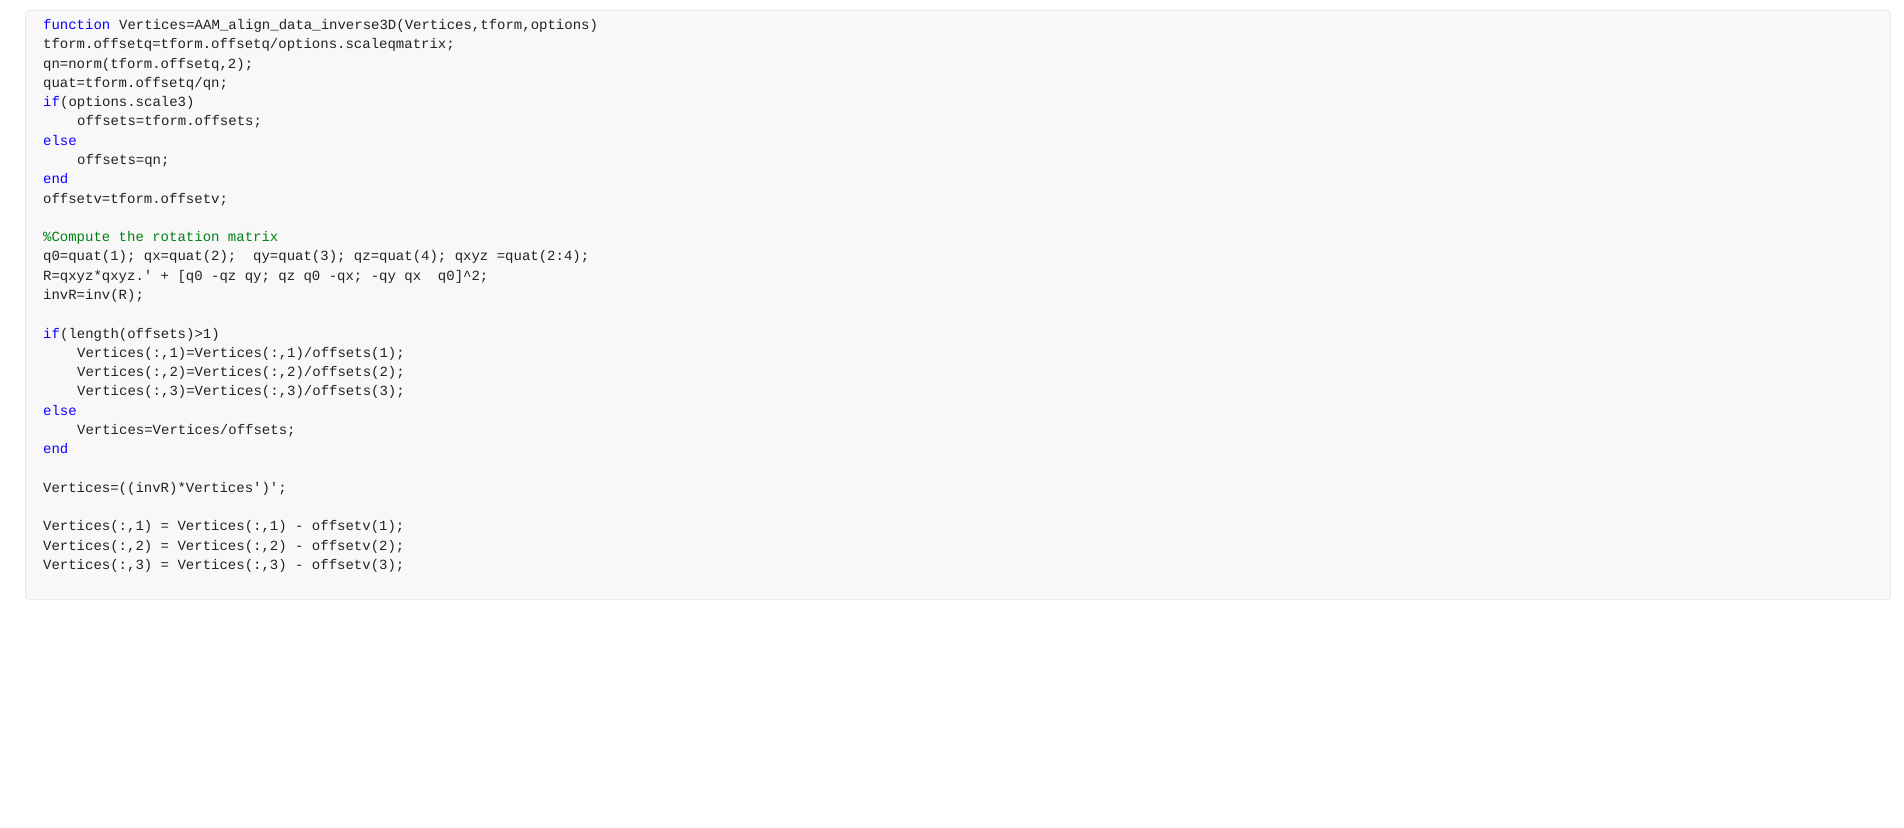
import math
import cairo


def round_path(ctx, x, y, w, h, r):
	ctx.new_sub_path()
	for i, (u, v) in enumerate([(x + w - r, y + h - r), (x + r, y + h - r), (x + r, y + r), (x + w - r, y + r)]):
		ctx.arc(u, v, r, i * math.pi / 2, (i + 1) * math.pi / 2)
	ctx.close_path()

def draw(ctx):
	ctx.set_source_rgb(1, 1, 1)
	ctx.paint()
	ctx.set_source_rgb(0.969, 0.969, 0.969)
	round_path(ctx, 25, 10, 1866, 590, 4)
	ctx.fill()
	ctx.set_source_rgb(0.914, 0.914, 0.914)
	ctx.set_fill_rule(cairo.FILL_RULE_EVEN_ODD)
	ctx.new_path()
	ctx.move_to(29, 10)
	ctx.line_to(1887, 10)
	ctx.curve_to(1889, 10, 1891, 12, 1891, 14)
	ctx.line_to(1891, 35)
	ctx.line_to(25, 35)
	ctx.line_to(25, 14)
	ctx.curve_to(25, 12, 27, 10, 29, 10)
	ctx.close_path()
	ctx.move_to(29, 11)
	ctx.line_to(1888, 11)
	ctx.line_to(1890, 13)
	ctx.line_to(1890, 35)
	ctx.line_to(26, 35)
	ctx.line_to(26, 14)
	ctx.curve_to(26, 12, 27, 11, 29, 11)
	ctx.close_path()
	ctx.fill()
	ctx.select_font_face('Liberation Mono')
	ctx.set_font_size(14)
	ctx.set_source_rgb(0.055, 0, 1)
	ctx.move_to(43, 29)
	ctx.show_text('function')
	ctx.set_source_rgb(0.129, 0.129, 0.129)
	ctx.move_to(119, 29)
	ctx.show_text('Vertices=AAM_align_data_inverse3D(Vertices,tform,options)')
	ctx.set_source_rgb(0.914, 0.914, 0.914)
	ctx.rectangle(1890, 35, 1, 540)
	ctx.fill()
	ctx.rectangle(25, 35, 1, 540)
	ctx.fill()
	ctx.set_source_rgb(0.129, 0.129, 0.129)
	for x, y, s in [
		(43, 48, 'tform.offsetq=tform.offsetq/options.scaleqmatrix;'),
		(43, 68, 'qn=norm(tform.offsetq,2);'),
		(43, 87, 'quat=tform.offsetq/qn;'),
	]:
		ctx.move_to(x, y)
		ctx.show_text(s)
	ctx.set_source_rgb(0.055, 0, 1)
	ctx.move_to(43, 106)
	ctx.show_text('if')
	ctx.set_source_rgb(0.129, 0.129, 0.129)
	ctx.move_to(60, 106)
	ctx.show_text('(options.scale3)')
	ctx.move_to(77, 125)
	ctx.show_text('offsets=tform.offsets;')
	ctx.set_source_rgb(0.055, 0, 1)
	ctx.move_to(43, 145)
	ctx.show_text('else')
	ctx.set_source_rgb(0.129, 0.129, 0.129)
	ctx.move_to(77, 164)
	ctx.show_text('offsets=qn;')
	ctx.set_source_rgb(0.055, 0, 1)
	ctx.move_to(43, 183)
	ctx.show_text('end')
	ctx.set_source_rgb(0.129, 0.129, 0.129)
	ctx.move_to(43, 203)
	ctx.show_text('offsetv=tform.offsetv;')
	ctx.set_source_rgb(0, 0.502, 0.075)
	ctx.move_to(43, 241)
	ctx.show_text('%Compute the rotation matrix')
	ctx.set_source_rgb(0.129, 0.129, 0.129)
	for x, y, s in [
		(43, 260, 'q0=quat(1); qx=quat(2);  qy=quat(3); qz=quat(4); qxyz =quat(2:4);'),
		(43, 280, 'R=qxyz*qxyz.\' + [q0 -qz qy; qz q0 -qx; -qy qx  q0]^2;'),
		(43, 299, 'invR=inv(R);'),
	]:
		ctx.move_to(x, y)
		ctx.show_text(s)
	ctx.set_source_rgb(0.055, 0, 1)
	ctx.move_to(43, 338)
	ctx.show_text('if')
	ctx.set_source_rgb(0.129, 0.129, 0.129)
	for x, y, s in [
		(60, 338, '(length(offsets)>1)'),
		(77, 357, 'Vertices(:,1)=Vertices(:,1)/offsets(1);'),
		(77, 376, 'Vertices(:,2)=Vertices(:,2)/offsets(2);'),
		(77, 395, 'Vertices(:,3)=Vertices(:,3)/offsets(3);'),
	]:
		ctx.move_to(x, y)
		ctx.show_text(s)
	ctx.set_source_rgb(0.055, 0, 1)
	ctx.move_to(43, 415)
	ctx.show_text('else')
	ctx.set_source_rgb(0.129, 0.129, 0.129)
	ctx.move_to(77, 434)
	ctx.show_text('Vertices=Vertices/offsets;')
	ctx.set_source_rgb(0.055, 0, 1)
	ctx.move_to(43, 453)
	ctx.show_text('end')
	ctx.set_source_rgb(0.129, 0.129, 0.129)
	for x, y, s in [
		(43, 492, 'Vertices=((invR)*Vertices\')\';'),
		(43, 530, 'Vertices(:,1) = Vertices(:,1) - offsetv(1);'),
		(43, 550, 'Vertices(:,2) = Vertices(:,2) - offsetv(2);'),
		(43, 569, 'Vertices(:,3) = Vertices(:,3) - offsetv(3);'),
	]:
		ctx.move_to(x, y)
		ctx.show_text(s)
	ctx.set_source_rgb(0.914, 0.914, 0.914)
	ctx.new_path()
	ctx.move_to(25, 575)
	ctx.line_to(1891, 575)
	ctx.line_to(1891, 596)
	ctx.curve_to(1891, 598, 1889, 600, 1887, 600)
	ctx.line_to(29, 600)
	ctx.curve_to(27, 600, 25, 598, 25, 596)
	ctx.close_path()
	ctx.move_to(26, 575)
	ctx.line_to(1890, 575)
	ctx.line_to(1890, 596)
	ctx.curve_to(1890, 598, 1889, 599, 1887, 599)
	ctx.line_to(29, 599)
	ctx.curve_to(27, 599, 26, 598, 26, 596)
	ctx.close_path()
	ctx.fill()


surface = cairo.ImageSurface(cairo.FORMAT_RGB24, 1904, 828)
ctx = cairo.Context(surface)
options = cairo.FontOptions()
options.set_hint_metrics(cairo.HINT_METRICS_OFF)
options.set_hint_style(cairo.HINT_STYLE_NONE)
ctx.set_font_options(options)
ctx.set_miter_limit(4)
draw(ctx)
surface.write_to_png('image.png')
